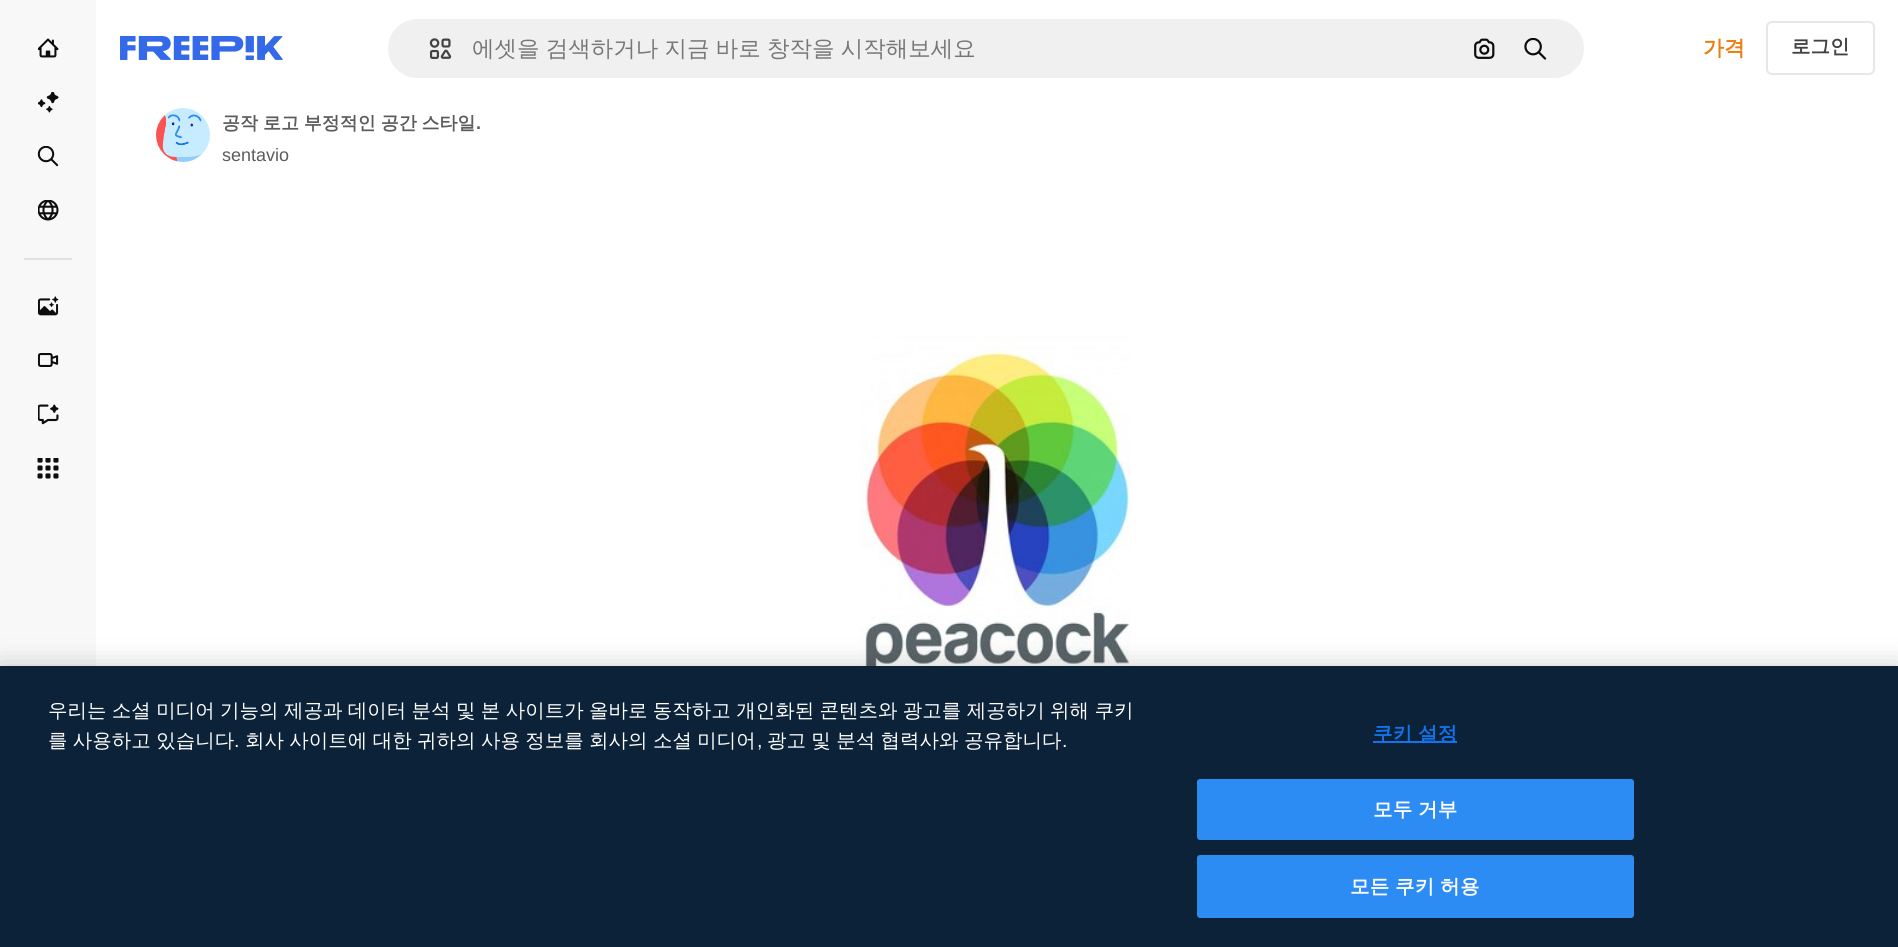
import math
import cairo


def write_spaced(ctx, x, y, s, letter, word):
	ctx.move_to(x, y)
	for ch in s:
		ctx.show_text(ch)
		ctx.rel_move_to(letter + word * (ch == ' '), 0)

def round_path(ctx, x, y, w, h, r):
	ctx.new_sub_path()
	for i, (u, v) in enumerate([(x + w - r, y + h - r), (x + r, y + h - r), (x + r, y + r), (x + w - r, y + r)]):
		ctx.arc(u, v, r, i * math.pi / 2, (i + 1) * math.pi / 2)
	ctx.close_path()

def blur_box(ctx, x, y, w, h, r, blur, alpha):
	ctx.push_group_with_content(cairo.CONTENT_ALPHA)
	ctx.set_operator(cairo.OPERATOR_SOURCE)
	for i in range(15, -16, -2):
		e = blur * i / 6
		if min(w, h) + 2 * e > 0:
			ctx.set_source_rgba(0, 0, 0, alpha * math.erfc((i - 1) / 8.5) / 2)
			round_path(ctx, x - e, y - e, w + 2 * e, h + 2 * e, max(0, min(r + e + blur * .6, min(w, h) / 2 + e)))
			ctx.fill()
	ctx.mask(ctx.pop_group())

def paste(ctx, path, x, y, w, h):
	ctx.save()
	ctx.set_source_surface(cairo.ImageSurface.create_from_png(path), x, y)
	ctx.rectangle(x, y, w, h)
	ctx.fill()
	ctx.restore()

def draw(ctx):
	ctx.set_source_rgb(1, 1, 1)
	ctx.paint()
	ctx.set_source_rgb(0.969, 0.969, 0.969)
	ctx.rectangle(0, 0, 96, 666)
	ctx.fill()
	paste(ctx, 'media/1.png', 38, 38, 21, 20)
	paste(ctx, 'media/2.png', 38, 92, 21, 21)
	paste(ctx, 'media/3.png', 37, 146, 22, 21)
	paste(ctx, 'media/4.png', 38, 200, 21, 21)
	ctx.set_source_rgb(0.878, 0.878, 0.878)
	ctx.rectangle(24, 258, 48, 2)
	ctx.fill()
	paste(ctx, 'media/5.png', 38, 296, 21, 20)
	paste(ctx, 'media/6.png', 38, 353, 21, 14)
	paste(ctx, 'media/7.png', 38, 404, 21, 21)
	paste(ctx, 'media/8.png', 37, 458, 22, 21)
	paste(ctx, 'media/9.png', 120, 36, 163, 24)
	ctx.set_source_rgb(0.941, 0.941, 0.941)
	round_path(ctx, 387, 18, 1198, 61, 30.5)
	ctx.fill_preserve()
	ctx.set_source_rgb(1, 1, 1)
	ctx.stroke()
	paste(ctx, 'media/10.png', 429, 38, 23, 21)
	ctx.select_font_face('WenQuanYi Zen Hei Medium')
	ctx.set_font_size(22.5)
	ctx.set_source_rgb(0.467, 0.467, 0.467)
	write_spaced(ctx, 472, 56, '에셋을 검색하거나 지금 바로 창작을 시작해보세요', 0, -0.5)
	paste(ctx, 'media/11.png', 1474, 38, 21, 21)
	paste(ctx, 'media/12.png', 1524, 38, 23, 22)
	ctx.select_font_face('WenQuanYi Zen Hei', cairo.FONT_SLANT_NORMAL, cairo.FONT_WEIGHT_BOLD)
	ctx.set_font_size(21)
	ctx.set_source_rgb(0.918, 0.494, 0.067)
	ctx.move_to(1703, 55)
	ctx.show_text('가격')
	round_path(ctx, 1767, 22, 107, 52, 5)
	ctx.set_source_rgb(0.906, 0.906, 0.906)
	ctx.stroke()
	ctx.set_font_size(19.5)
	ctx.set_source_rgb(0.259, 0.259, 0.259)
	ctx.move_to(1791, 53)
	ctx.show_text('로그인')
	paste(ctx, 'media/13.png', 156, 108, 54, 54)
	ctx.set_font_size(18)
	ctx.set_source_rgb(0.361, 0.361, 0.361)
	write_spaced(ctx, 222, 129, '공작 로고 부정적인 공간 스타일', 0, -0.5)
	ctx.select_font_face('Liberation Sans', cairo.FONT_SLANT_NORMAL, cairo.FONT_WEIGHT_BOLD)
	ctx.move_to(476, 129)
	ctx.show_text('.')
	ctx.select_font_face('Liberation Sans')
	ctx.move_to(222, 161)
	ctx.show_text('sentavio')
	paste(ctx, 'media/14.png', 860, 336, 271, 330)
	ctx.set_source_rgb(0, 0, 0)
	blur_box(ctx, 0, 666, 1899, 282, 0, 13.5, 0.2)
	ctx.set_source_rgb(0.043, 0.133, 0.224)
	ctx.rectangle(0, 666, 1898, 281)
	ctx.fill()
	ctx.select_font_face('WenQuanYi Zen Hei Medium')
	ctx.set_font_size(19.5)
	ctx.set_source_rgb(1, 1, 1)
	write_spaced(ctx, 48, 717, '우리는 소셜 미디어 기능의 제공과 데이터 분석 및 본 사이트가 올바로 동작하고 개인화된 콘텐츠와 광고를 제공하기 위해 쿠키', 0, -0.5)
	write_spaced(ctx, 48, 747, '를 사용하고 있습니다', 0, -0.5)
	ctx.select_font_face('Liberation Sans')
	ctx.move_to(234, 747)
	ctx.show_text('.')
	ctx.select_font_face('WenQuanYi Zen Hei Medium')
	write_spaced(ctx, 245, 747, '회사 사이트에 대한 귀하의 사용 정보를 회사의 소셜 미디어', 0, -0.5)
	ctx.select_font_face('Liberation Sans')
	ctx.move_to(757, 747)
	ctx.show_text(',')
	ctx.select_font_face('WenQuanYi Zen Hei Medium')
	write_spaced(ctx, 767, 747, '광고 및 분석 협력사와 공유합니다', 0, -0.5)
	ctx.select_font_face('Liberation Sans')
	ctx.move_to(1062, 747)
	ctx.show_text('.')
	ctx.set_source_rgb(0.071, 0.451, 0.922)
	ctx.rectangle(1373, 741, 84, 2)
	ctx.fill()
	ctx.select_font_face('WenQuanYi Zen Hei', cairo.FONT_SLANT_NORMAL, cairo.FONT_WEIGHT_BOLD)
	write_spaced(ctx, 1373, 740, '쿠키 설정', 0.25, -0.5)
	ctx.set_source_rgb(0.173, 0.549, 0.957)
	round_path(ctx, 1198, 780, 435, 59, 2)
	ctx.fill_preserve()
	ctx.stroke()
	ctx.set_source_rgb(1, 1, 1)
	write_spaced(ctx, 1373, 816, '모두 거부', 0.25, -0.5)
	ctx.set_source_rgb(0.173, 0.549, 0.957)
	round_path(ctx, 1198, 856, 435, 61, 2)
	ctx.fill_preserve()
	ctx.stroke()
	ctx.set_source_rgb(1, 1, 1)
	write_spaced(ctx, 1350, 893, '모든 쿠키 허용', 0.25, -0.5)


surface = cairo.ImageSurface(cairo.FORMAT_RGB24, 1898, 947)
ctx = cairo.Context(surface)
options = cairo.FontOptions()
options.set_hint_metrics(cairo.HINT_METRICS_OFF)
options.set_hint_style(cairo.HINT_STYLE_NONE)
ctx.set_font_options(options)
ctx.set_miter_limit(4)
draw(ctx)
surface.write_to_png('image.png')
